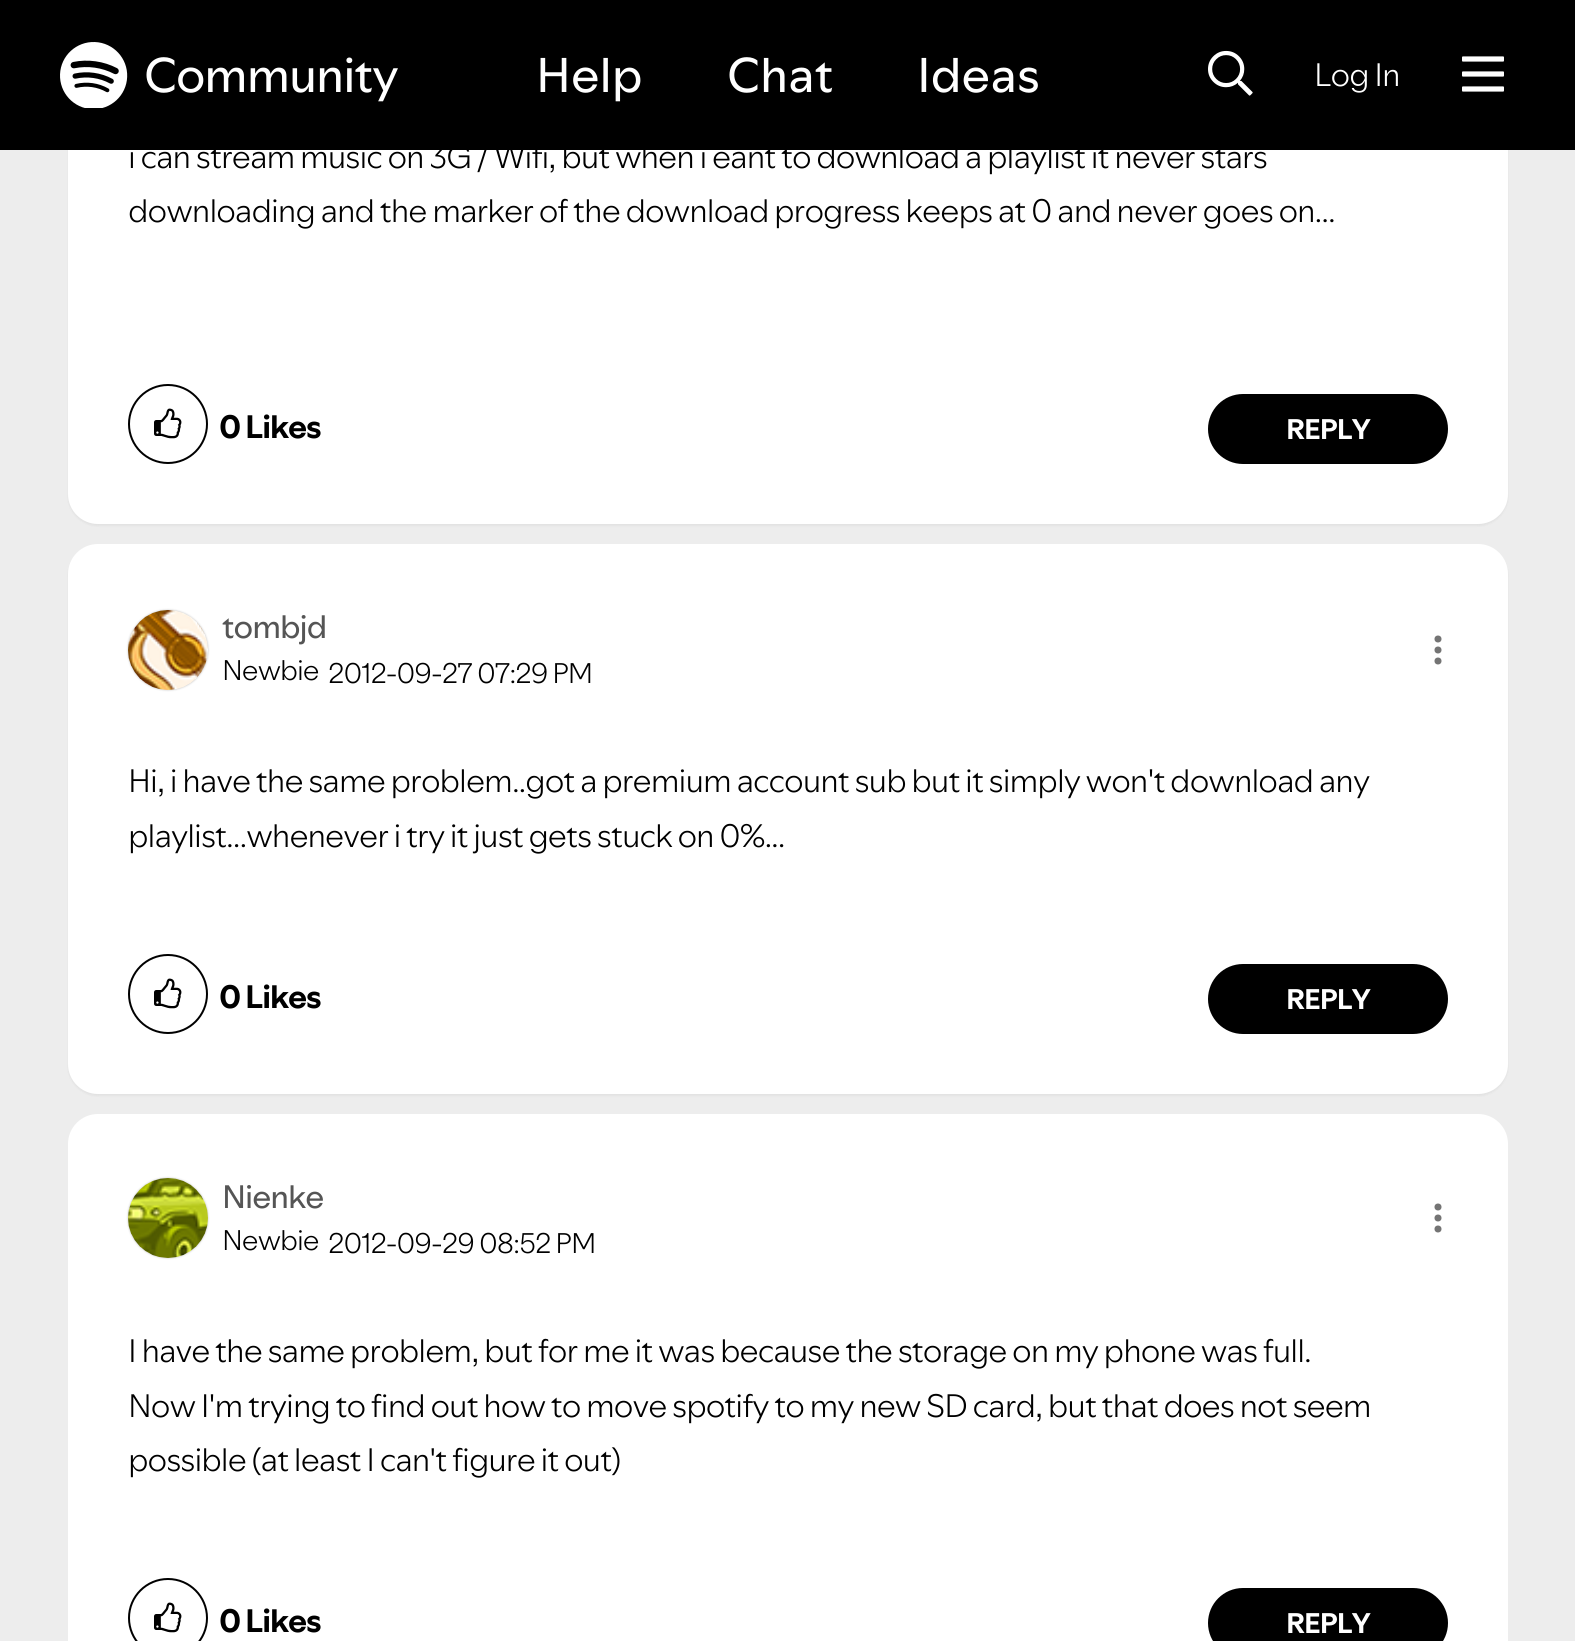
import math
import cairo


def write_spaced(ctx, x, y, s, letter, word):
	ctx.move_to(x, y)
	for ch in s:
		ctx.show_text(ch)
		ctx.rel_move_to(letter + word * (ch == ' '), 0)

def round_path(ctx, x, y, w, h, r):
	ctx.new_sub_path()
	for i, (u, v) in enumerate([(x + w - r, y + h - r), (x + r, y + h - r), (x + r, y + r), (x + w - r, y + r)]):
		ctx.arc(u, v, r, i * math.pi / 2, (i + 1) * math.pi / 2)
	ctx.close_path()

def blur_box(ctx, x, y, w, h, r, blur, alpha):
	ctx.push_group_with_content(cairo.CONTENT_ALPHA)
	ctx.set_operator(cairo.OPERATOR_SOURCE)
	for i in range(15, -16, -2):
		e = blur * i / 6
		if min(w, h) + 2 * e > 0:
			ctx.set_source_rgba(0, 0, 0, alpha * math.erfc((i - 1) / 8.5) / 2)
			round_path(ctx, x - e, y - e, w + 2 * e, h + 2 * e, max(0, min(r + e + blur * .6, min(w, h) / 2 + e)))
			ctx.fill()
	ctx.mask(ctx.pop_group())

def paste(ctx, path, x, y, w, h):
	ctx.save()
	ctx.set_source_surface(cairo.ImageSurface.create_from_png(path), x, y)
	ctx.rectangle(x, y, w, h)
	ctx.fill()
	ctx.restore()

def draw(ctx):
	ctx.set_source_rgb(0.929, 0.929, 0.929)
	ctx.paint()
	ctx.set_source_rgb(0, 0, 0)
	blur_box(ctx, 68, -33, 1440, 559, 30, 1, 0.05)
	ctx.set_source_rgb(1, 1, 1)
	round_path(ctx, 68, -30, 1440, 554, 30)
	ctx.fill()
	ctx.set_source_rgb(0, 0, 0)
	ctx.rectangle(0, 0, 1575, 150)
	ctx.fill()
	paste(ctx, 'media/1.png', 60, 42, 68, 66)
	ctx.select_font_face('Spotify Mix')
	ctx.set_font_size(48)
	ctx.set_source_rgb(1, 1, 1)
	write_spaced(ctx, 144, 92, 'Community', -1, 0)
	for x, y, s in [
		(536, 92, 'Help'),
		(727, 92, 'Chat'),
		(917, 92, 'Ideas'),
	]:
		ctx.move_to(x, y)
		ctx.show_text(s)
	paste(ctx, 'media/2.png', 1208, 50, 45, 46)
	ctx.select_font_face('Spotify Mix Light')
	ctx.set_font_size(32)
	write_spaced(ctx, 1314, 86, 'Log In', -1, 0)
	paste(ctx, 'media/3.png', 1462, 56, 42, 36)
	ctx.set_source_rgb(0, 0, 0)
	write_spaced(ctx, 128, 168, 'i can stream music on 3G / Wifi, but when i eant to download a playlist it never stars', -1, 0)
	write_spaced(ctx, 128, 222, 'downloading and the marker of the download progress keeps at 0 and never goes on...', -1, 0)
	ctx.new_path()
	ctx.arc(168, 424, 39, 0, 2 * math.pi)
	ctx.stroke()
	paste(ctx, 'media/4.png', 154, 408, 28, 31)
	ctx.select_font_face('Spotify Mix', cairo.FONT_SLANT_NORMAL, cairo.FONT_WEIGHT_BOLD)
	write_spaced(ctx, 219, 438, '0 Likes', -1, 0)
	round_path(ctx, 1209, 395, 238, 68, 34)
	ctx.fill_preserve()
	ctx.stroke()
	ctx.set_font_size(28)
	ctx.set_source_rgb(1, 1, 1)
	write_spaced(ctx, 1286, 439, 'REPLY', -1, 0)
	ctx.set_source_rgb(0, 0, 0)
	blur_box(ctx, 68, 546, 1440, 550, 30, 1, 0.05)
	ctx.set_source_rgb(1, 1, 1)
	round_path(ctx, 68, 544, 1440, 550, 30)
	ctx.fill()
	ctx.set_source_rgb(0.769, 0.769, 0.769)
	blur_box(ctx, 128, 610, 80, 80, 40, 1, 1)
	paste(ctx, 'media/5.png', 128, 610, 80, 80)
	ctx.select_font_face('Spotify Mix')
	ctx.set_font_size(32)
	ctx.set_source_rgb(0.333, 0.333, 0.333)
	write_spaced(ctx, 222, 638, 'tombjd', -1, 0)
	ctx.select_font_face('Spotify Mix Light')
	ctx.set_font_size(28)
	ctx.set_source_rgb(0, 0, 0)
	for x, y, s in [
		(222, 680, 'Newbie'),
		(328, 683, '2012-09-27'),
		(477, 683, '07:29 PM'),
	]:
		write_spaced(ctx, x, y, s, -1, 0)
	ctx.set_source_rgb(0.455, 0.455, 0.455)
	ctx.new_path()
	ctx.arc(1438, 639, 3.5, 0, 2 * math.pi)
	ctx.fill()
	ctx.arc(1438, 650, 3.5, 0, 2 * math.pi)
	ctx.fill()
	ctx.arc(1438, 661, 3.5, 0, 2 * math.pi)
	ctx.fill()
	ctx.set_font_size(32)
	ctx.set_source_rgb(0, 0, 0)
	write_spaced(ctx, 128, 792, 'Hi, i have the same problem..got a premium account sub but it simply won\'t download any', -1, 0)
	write_spaced(ctx, 128, 847, 'playlist...whenever i try it just gets stuck on 0%...', -1, 0)
	ctx.new_path()
	ctx.arc(168, 994, 39, 0, 2 * math.pi)
	ctx.stroke()
	paste(ctx, 'media/4.png', 154, 978, 28, 31)
	ctx.select_font_face('Spotify Mix', cairo.FONT_SLANT_NORMAL, cairo.FONT_WEIGHT_BOLD)
	write_spaced(ctx, 219, 1008, '0 Likes', -1, 0)
	round_path(ctx, 1209, 965, 238, 68, 34)
	ctx.fill_preserve()
	ctx.stroke()
	ctx.set_font_size(28)
	ctx.set_source_rgb(1, 1, 1)
	write_spaced(ctx, 1286, 1009, 'REPLY', -1, 0)
	round_path(ctx, 68, 1114, 1440, 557, 30)
	ctx.fill()
	ctx.set_source_rgb(0.769, 0.769, 0.769)
	blur_box(ctx, 128, 1178, 80, 80, 40, 1, 1)
	paste(ctx, 'media/6.png', 128, 1178, 80, 80)
	ctx.select_font_face('Spotify Mix')
	ctx.set_font_size(32)
	ctx.set_source_rgb(0.333, 0.333, 0.333)
	write_spaced(ctx, 222, 1208, 'Nienke', -1, 0)
	ctx.select_font_face('Spotify Mix Light')
	ctx.set_font_size(28)
	ctx.set_source_rgb(0, 0, 0)
	for x, y, s in [
		(222, 1250, 'Newbie'),
		(328, 1253, '2012-09-29'),
		(479, 1253, '08:52 PM'),
	]:
		write_spaced(ctx, x, y, s, -1, 0)
	ctx.set_source_rgb(0.455, 0.455, 0.455)
	ctx.new_path()
	ctx.arc(1438, 1207, 3.5, 0, 2 * math.pi)
	ctx.fill()
	ctx.arc(1438, 1218, 3.5, 0, 2 * math.pi)
	ctx.fill()
	ctx.arc(1438, 1229, 3.5, 0, 2 * math.pi)
	ctx.fill()
	ctx.set_font_size(32)
	ctx.set_source_rgb(0, 0, 0)
	for x, y, s in [
		(128, 1362, 'I have the same problem, but for me it was because the storage on my phone was full.'),
		(128, 1417, 'Now I\'m trying to find out how to move spotify to my new SD card, but that does not seem'),
		(128, 1471, 'possible (at least I can\'t figure it out)'),
	]:
		write_spaced(ctx, x, y, s, -1, 0)
	ctx.new_path()
	ctx.arc(168, 1618, 39, 0, 2 * math.pi)
	ctx.stroke()
	paste(ctx, 'media/4.png', 154, 1602, 28, 31)
	ctx.select_font_face('Spotify Mix', cairo.FONT_SLANT_NORMAL, cairo.FONT_WEIGHT_BOLD)
	write_spaced(ctx, 219, 1632, '0 Likes', -1, 0)
	round_path(ctx, 1209, 1589, 238, 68, 34)
	ctx.fill_preserve()
	ctx.stroke()
	ctx.set_font_size(28)
	ctx.set_source_rgb(1, 1, 1)
	write_spaced(ctx, 1286, 1633, 'REPLY', -1, 0)


surface = cairo.ImageSurface(cairo.FORMAT_RGB24, 1575, 1641)
ctx = cairo.Context(surface)
options = cairo.FontOptions()
options.set_hint_metrics(cairo.HINT_METRICS_OFF)
options.set_hint_style(cairo.HINT_STYLE_NONE)
ctx.set_font_options(options)
ctx.set_miter_limit(4)
draw(ctx)
surface.write_to_png('image.png')
